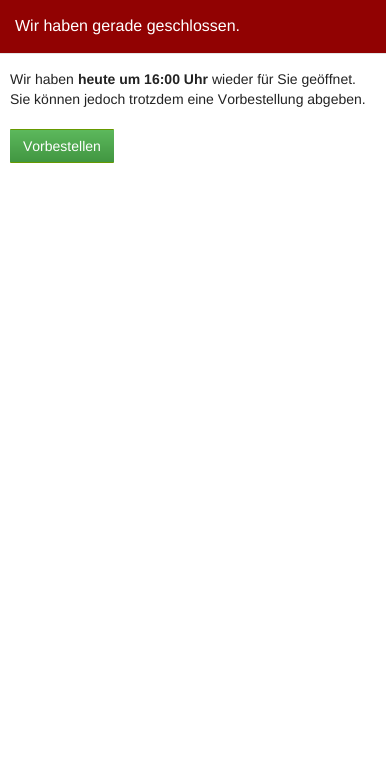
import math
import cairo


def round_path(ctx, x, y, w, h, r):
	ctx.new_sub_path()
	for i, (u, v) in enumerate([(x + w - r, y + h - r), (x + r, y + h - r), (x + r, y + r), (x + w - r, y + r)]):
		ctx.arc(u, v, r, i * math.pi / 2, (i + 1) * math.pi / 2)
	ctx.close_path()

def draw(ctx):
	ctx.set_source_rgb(1, 1, 1)
	ctx.paint()
	ctx.set_source_rgb(0.569, 0.008, 0.008)
	ctx.rectangle(0, 0, 386, 53)
	ctx.fill()
	ctx.set_source_rgb(0.898, 0.898, 0.898)
	ctx.rectangle(0, 53, 386, 1)
	ctx.fill()
	ctx.select_font_face('Liberation Sans')
	ctx.set_font_size(16)
	ctx.set_source_rgb(1, 1, 1)
	ctx.move_to(15, 31)
	ctx.show_text('Wir haben gerade geschlossen.')
	ctx.set_font_size(14)
	ctx.set_source_rgb(0.133, 0.133, 0.133)
	ctx.move_to(10, 84)
	ctx.show_text('Wir haben')
	ctx.select_font_face('Liberation Sans', cairo.FONT_SLANT_NORMAL, cairo.FONT_WEIGHT_BOLD)
	ctx.move_to(78, 84)
	ctx.show_text('heute um 16:00 Uhr')
	ctx.select_font_face('Liberation Sans')
	ctx.move_to(212, 84)
	ctx.show_text('wieder für Sie geöffnet.')
	ctx.move_to(10, 104)
	ctx.show_text('Sie können jedoch trotzdem eine Vorbestellung abgeben.')
	ctx.set_source_rgb(0.4, 0.6, 0)
	round_path(ctx, 10, 129, 104, 34, 1)
	ctx.fill()
	gradient = cairo.LinearGradient(62, 130, 62, 162)
	gradient.add_color_stop_rgba(0, 0.361, 0.722, 0.361, 1)
	gradient.add_color_stop_rgba(1, 0.255, 0.588, 0.255, 1)
	ctx.set_source(gradient)
	ctx.rectangle(10, 130, 104, 32)
	ctx.fill()
	ctx.set_source_rgb(1, 1, 1)
	ctx.move_to(23, 151)
	ctx.show_text('Vorbestellen')


surface = cairo.ImageSurface(cairo.FORMAT_RGB24, 386, 757)
ctx = cairo.Context(surface)
options = cairo.FontOptions()
options.set_hint_metrics(cairo.HINT_METRICS_OFF)
options.set_hint_style(cairo.HINT_STYLE_NONE)
ctx.set_font_options(options)
ctx.set_miter_limit(4)
draw(ctx)
surface.write_to_png('image.png')
